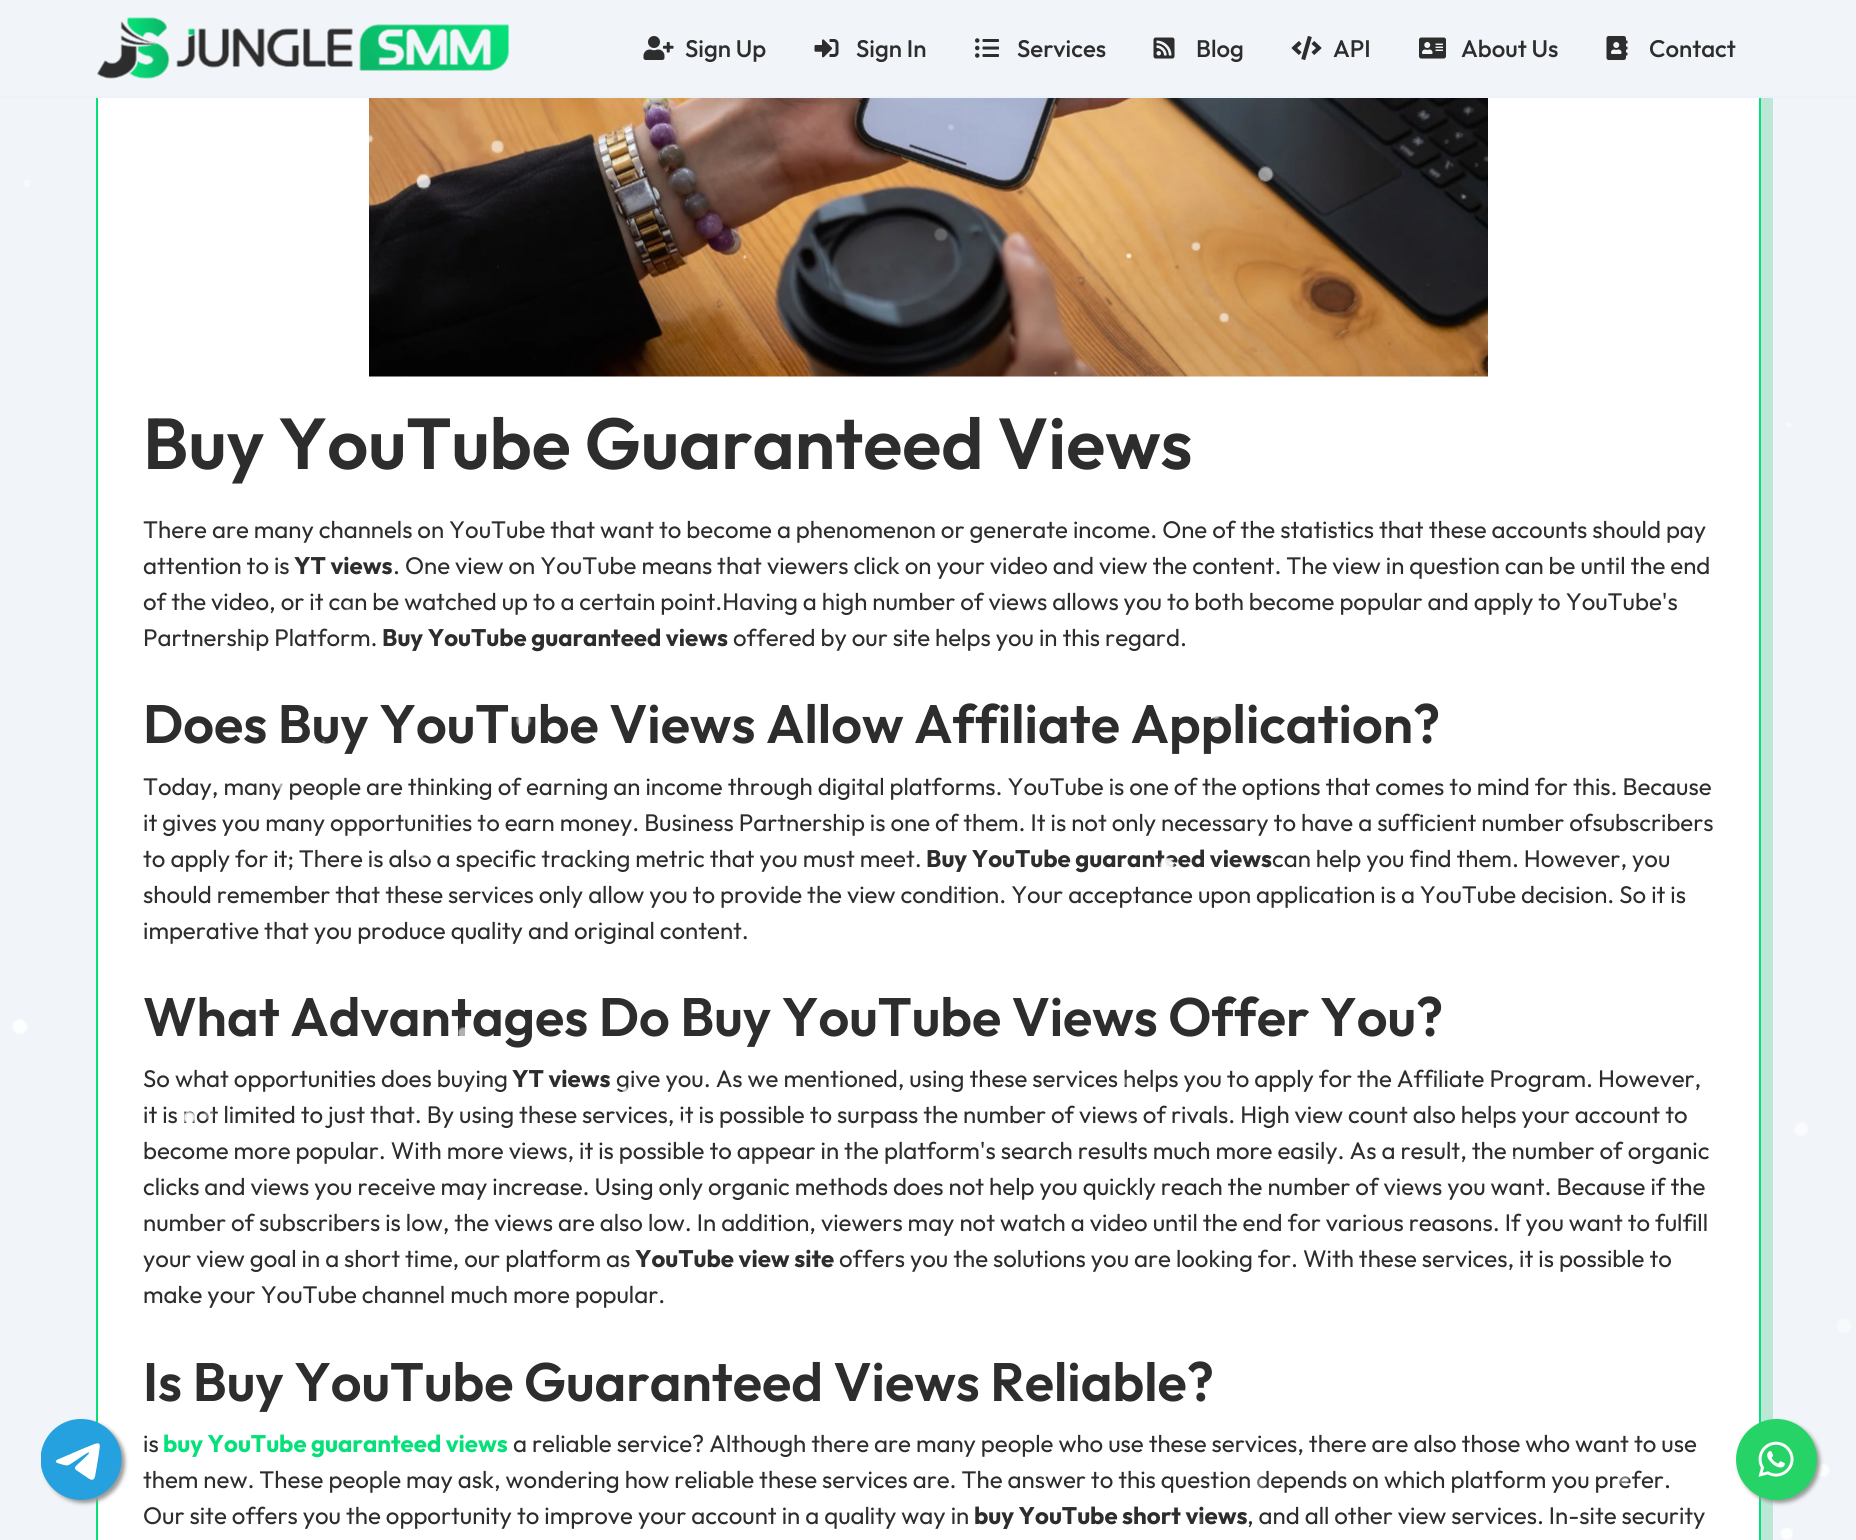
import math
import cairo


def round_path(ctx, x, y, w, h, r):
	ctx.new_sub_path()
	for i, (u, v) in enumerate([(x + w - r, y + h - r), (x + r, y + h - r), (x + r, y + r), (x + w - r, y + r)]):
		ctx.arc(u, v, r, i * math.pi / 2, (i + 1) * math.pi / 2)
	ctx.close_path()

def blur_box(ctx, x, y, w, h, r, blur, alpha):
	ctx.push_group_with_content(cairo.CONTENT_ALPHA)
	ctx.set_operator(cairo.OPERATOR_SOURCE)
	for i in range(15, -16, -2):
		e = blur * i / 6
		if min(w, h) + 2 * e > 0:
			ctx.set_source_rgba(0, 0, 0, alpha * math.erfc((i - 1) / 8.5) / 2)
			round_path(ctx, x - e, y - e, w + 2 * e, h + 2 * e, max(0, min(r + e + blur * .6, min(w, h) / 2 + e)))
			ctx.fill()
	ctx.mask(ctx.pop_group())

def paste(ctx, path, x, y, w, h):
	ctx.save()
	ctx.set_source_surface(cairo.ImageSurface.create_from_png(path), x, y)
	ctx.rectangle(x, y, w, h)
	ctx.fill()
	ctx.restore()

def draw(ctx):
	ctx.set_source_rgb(0.945, 0.957, 0.969)
	ctx.paint()
	ctx.set_source_rgb(0.737, 0.906, 0.839)
	ctx.new_path()
	ctx.move_to(108, 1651)
	ctx.curve_to(109, 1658, 115, 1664, 123, 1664)
	ctx.line_to(1758, 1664)
	ctx.curve_to(1766, 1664, 1773, 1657, 1773, 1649)
	ctx.line_to(1773, -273)
	ctx.curve_to(1773, -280, 1768, -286, 1761, -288)
	ctx.line_to(1761, 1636)
	ctx.curve_to(1761, 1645, 1754, 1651, 1746, 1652)
	ctx.close_path()
	ctx.fill()
	ctx.set_source_rgb(1, 1, 1)
	ctx.rectangle(98, 98, 1661, 1442)
	ctx.fill()
	ctx.rectangle(97, -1, 1663, 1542)
	ctx.set_source_rgb(0.024, 0.878, 0.475)
	ctx.stroke()
	ctx.set_source_rgb(0.929, 0.949, 0.973)
	ctx.rectangle(0, 96, 1856, 2)
	ctx.fill()
	ctx.set_source_rgb(0.945, 0.957, 0.969)
	ctx.rectangle(96, 0, 1677, 96)
	ctx.fill()
	paste(ctx, 'media/1.png', 97, 17, 412, 62)
	paste(ctx, 'media/2.png', 643, 36, 31, 24)
	ctx.select_font_face('Outfit Medium')
	ctx.set_font_size(24)
	ctx.set_source_rgb(0.176, 0.176, 0.176)
	ctx.move_to(685, 57)
	ctx.show_text('Sign Up')
	paste(ctx, 'media/3.png', 814, 39, 25, 19)
	ctx.move_to(856, 57)
	ctx.show_text('Sign In')
	paste(ctx, 'media/4.png', 975, 38, 24, 20)
	ctx.move_to(1017, 57)
	ctx.show_text('Services')
	paste(ctx, 'media/5.png', 1153, 37, 22, 22)
	ctx.move_to(1196, 57)
	ctx.show_text('Blog')
	paste(ctx, 'media/6.png', 1291, 36, 31, 24)
	ctx.move_to(1333, 57)
	ctx.show_text('API')
	paste(ctx, 'media/7.png', 1419, 37, 27, 22)
	ctx.move_to(1461, 57)
	ctx.show_text('About Us')
	paste(ctx, 'media/8.png', 1606, 36, 22, 24)
	ctx.move_to(1649, 57)
	ctx.show_text('Contact')
	paste(ctx, 'media/9.png', 369, 98, 1119, 279)
	ctx.select_font_face('Outfit SemiBold')
	ctx.set_font_size(72)
	ctx.move_to(143, 469)
	ctx.show_text('Buy YouTube Guaranteed Views')
	ctx.select_font_face('Outfit')
	ctx.set_font_size(24)
	ctx.move_to(143, 538)
	ctx.show_text('There are many channels on YouTube that want to become a phenomenon or generate income. One of the statistics that these accounts should pay')
	ctx.move_to(143, 574)
	ctx.show_text('attention to is')
	ctx.select_font_face('Outfit', cairo.FONT_SLANT_NORMAL, cairo.FONT_WEIGHT_BOLD)
	ctx.move_to(294, 574)
	ctx.show_text('YT views')
	ctx.select_font_face('Outfit')
	for x, y, s in [
		(393, 574, '. One view on YouTube means that viewers click on your video and view the content. The view in question can be until the end'),
		(143, 610, 'of the video, or it can be watched up to a certain point.Having a high number of views allows you to both become popular and apply to YouTube\'s'),
		(143, 646, 'Partnership Platform.'),
	]:
		ctx.move_to(x, y)
		ctx.show_text(s)
	ctx.select_font_face('Outfit', cairo.FONT_SLANT_NORMAL, cairo.FONT_WEIGHT_BOLD)
	ctx.move_to(382, 646)
	ctx.show_text('Buy YouTube guaranteed views')
	ctx.select_font_face('Outfit')
	ctx.move_to(733, 646)
	ctx.show_text('offered by our site helps you in this regard.')
	ctx.select_font_face('Outfit SemiBold')
	ctx.set_font_size(54)
	ctx.move_to(143, 743)
	ctx.show_text('Does Buy YouTube Views Allow Affiliate Application?')
	ctx.select_font_face('Outfit')
	ctx.set_font_size(24)
	for x, y, s in [
		(143, 795, 'Today, many people are thinking of earning an income through digital platforms. YouTube is one of the options that comes to mind for this. Because'),
		(143, 831, 'it gives you many opportunities to earn money. Business Partnership is one of them. It is not only necessary to have a sufficient number ofsubscribers'),
		(143, 867, 'to apply for it; There is also a specific tracking metric that you must meet.'),
	]:
		ctx.move_to(x, y)
		ctx.show_text(s)
	ctx.select_font_face('Outfit', cairo.FONT_SLANT_NORMAL, cairo.FONT_WEIGHT_BOLD)
	ctx.move_to(926, 867)
	ctx.show_text('Buy YouTube guaranteed views')
	ctx.select_font_face('Outfit')
	for x, y, s in [
		(1272, 867, 'can help you find them. However, you'),
		(143, 903, 'should remember that these services only allow you to provide the view condition. Your acceptance upon application is a YouTube decision. So it is'),
		(143, 939, 'imperative that you produce quality and original content.'),
	]:
		ctx.move_to(x, y)
		ctx.show_text(s)
	ctx.select_font_face('Outfit SemiBold')
	ctx.set_font_size(54)
	ctx.move_to(143, 1036)
	ctx.show_text('What Advantages Do Buy YouTube Views Offer You?')
	ctx.select_font_face('Outfit')
	ctx.set_font_size(24)
	ctx.move_to(143, 1087)
	ctx.show_text('So what opportunities does buying')
	ctx.select_font_face('Outfit', cairo.FONT_SLANT_NORMAL, cairo.FONT_WEIGHT_BOLD)
	ctx.move_to(512, 1087)
	ctx.show_text('YT views')
	ctx.select_font_face('Outfit')
	for x, y, s in [
		(616, 1087, 'give you. As we mentioned, using these services helps you to apply for the Affiliate Program. However,'),
		(143, 1123, 'it is not limited to just that. By using these services, it is possible to surpass the number of views of rivals. High view count also helps your account to'),
		(143, 1159, 'become more popular. With more views, it is possible to appear in the platform\'s search results much more easily. As a result, the number of organic'),
		(143, 1195, 'clicks and views you receive may increase. Using only organic methods does not help you quickly reach the number of views you want. Because if the'),
		(143, 1231, 'number of subscribers is low, the views are also low. In addition, viewers may not watch a video until the end for various reasons. If you want to fulfill'),
		(143, 1267, 'your view goal in a short time, our platform as'),
	]:
		ctx.move_to(x, y)
		ctx.show_text(s)
	ctx.select_font_face('Outfit', cairo.FONT_SLANT_NORMAL, cairo.FONT_WEIGHT_BOLD)
	ctx.move_to(635, 1267)
	ctx.show_text('YouTube view site')
	ctx.select_font_face('Outfit')
	ctx.move_to(839, 1267)
	ctx.show_text('offers you the solutions you are looking for. With these services, it is possible to')
	ctx.move_to(143, 1303)
	ctx.show_text('make your YouTube channel much more popular.')
	ctx.select_font_face('Outfit SemiBold')
	ctx.set_font_size(54)
	ctx.move_to(143, 1401)
	ctx.show_text('Is Buy YouTube Guaranteed Views Reliable?')
	ctx.select_font_face('Outfit')
	ctx.set_font_size(24)
	ctx.move_to(143, 1452)
	ctx.show_text('is')
	ctx.select_font_face('Outfit', cairo.FONT_SLANT_NORMAL, cairo.FONT_WEIGHT_BOLD)
	ctx.set_source_rgb(0.024, 0.878, 0.475)
	ctx.move_to(163, 1452)
	ctx.show_text('buy YouTube guaranteed views')
	ctx.select_font_face('Outfit')
	ctx.set_source_rgb(0.176, 0.176, 0.176)
	for x, y, s in [
		(513, 1452, 'a reliable service? Although there are many people who use these services, there are also those who want to use'),
		(143, 1488, 'them new. These people may ask, wondering how reliable these services are. The answer to this question depends on which platform you prefer.'),
		(143, 1524, 'Our site offers you the opportunity to improve your account in a quality way in'),
	]:
		ctx.move_to(x, y)
		ctx.show_text(s)
	ctx.select_font_face('Outfit', cairo.FONT_SLANT_NORMAL, cairo.FONT_WEIGHT_BOLD)
	ctx.move_to(974, 1524)
	ctx.show_text('buy YouTube short views')
	ctx.select_font_face('Outfit')
	ctx.move_to(1247, 1524)
	ctx.show_text(', and all other view services. In-site security')
	paste(ctx, 'media/10.png', 12, 123, 1839, 1417)
	ctx.set_source_rgb(0.6, 0.6, 0.6)
	blur_box(ctx, 44, 1422, 81, 81, 40.5, 2, 1)
	ctx.set_source_rgb(1, 1, 1)
	ctx.arc(81.5, 1459.5, 28.5, 0, 2 * math.pi)
	ctx.fill()
	paste(ctx, 'media/11.png', 41, 1419, 81, 81)
	ctx.set_source_rgb(0.6, 0.6, 0.6)
	blur_box(ctx, 1739, 1422, 81, 81, 40.5, 2, 1)
	ctx.set_source_rgb(0.145, 0.827, 0.4)
	ctx.arc(1776.5, 1459.5, 40.5, 0, 2 * math.pi)
	ctx.fill()
	paste(ctx, 'media/12.png', 1758, 1441, 36, 36)


surface = cairo.ImageSurface(cairo.FORMAT_RGB24, 1856, 1540)
ctx = cairo.Context(surface)
options = cairo.FontOptions()
options.set_hint_metrics(cairo.HINT_METRICS_OFF)
options.set_hint_style(cairo.HINT_STYLE_NONE)
ctx.set_font_options(options)
ctx.set_miter_limit(4)
draw(ctx)
surface.write_to_png('image.png')
